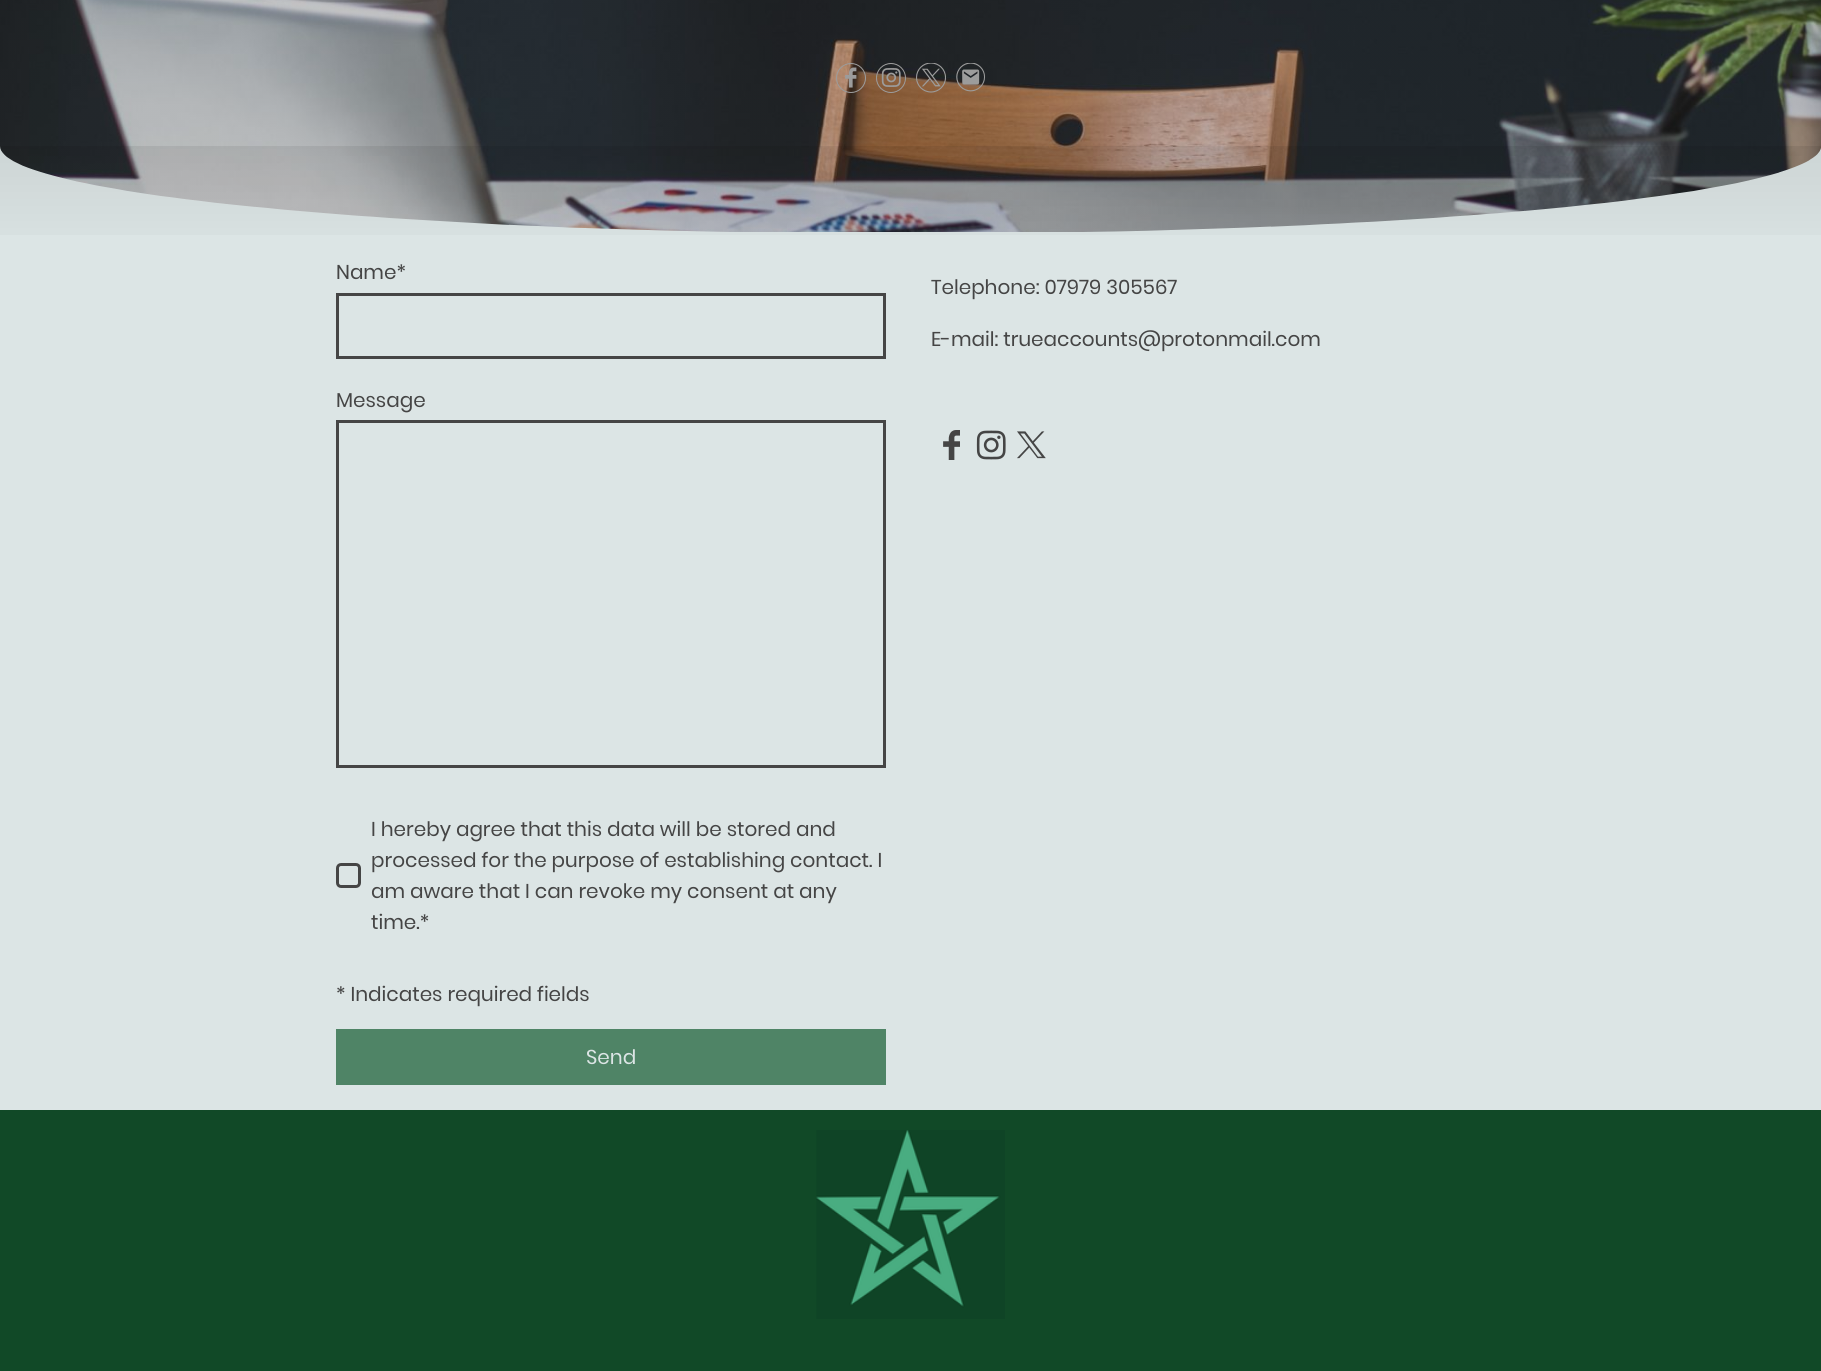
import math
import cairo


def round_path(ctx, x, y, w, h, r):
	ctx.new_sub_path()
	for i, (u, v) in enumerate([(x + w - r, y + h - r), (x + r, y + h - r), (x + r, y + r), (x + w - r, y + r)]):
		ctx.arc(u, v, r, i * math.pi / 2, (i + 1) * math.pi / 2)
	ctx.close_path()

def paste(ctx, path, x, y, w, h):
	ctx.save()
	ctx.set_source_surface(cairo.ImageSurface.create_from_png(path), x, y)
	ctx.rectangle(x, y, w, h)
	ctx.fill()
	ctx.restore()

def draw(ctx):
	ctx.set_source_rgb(0.863, 0.898, 0.898)
	ctx.paint()
	paste(ctx, 'media/1.png', 0, 0, 1821, 232)
	paste(ctx, 'media/2.png', 836, 63, 30, 30)
	paste(ctx, 'media/3.png', 876, 63, 30, 30)
	paste(ctx, 'media/4.png', 916, 63, 30, 30)
	paste(ctx, 'media/5.png', 956, 63, 29, 29)
	paste(ctx, 'media/6.png', 0, 146, 1821, 87)
	gradient = cairo.LinearGradient(911, 146, 911, 275)
	gradient.add_color_stop_rgba(0, 0, 0, 0, 0.07)
	gradient.add_color_stop_rgba(1, 0, 0, 0, 0)
	ctx.set_source(gradient)
	ctx.rectangle(0, 146, 1821, 89)
	ctx.fill()
	ctx.select_font_face('Poppins')
	ctx.set_font_size(20)
	ctx.set_source_rgb(0.271, 0.271, 0.271)
	ctx.move_to(336, 279)
	ctx.show_text('Name*')
	ctx.rectangle(337.5, 294.5, 547, 63)
	ctx.set_line_width(3)
	ctx.stroke()
	ctx.move_to(336, 407)
	ctx.show_text('Message')
	ctx.rectangle(337.5, 421.5, 547, 345)
	ctx.stroke()
	round_path(ctx, 337.5, 864.5, 22, 22, 3.5)
	ctx.stroke()
	for x, y, s in [
		(371, 836, 'I hereby agree that this data will be stored and'),
		(371, 867, 'processed for the purpose of establishing contact. I'),
		(371, 898, 'am aware that I can revoke my consent at any'),
		(371, 929, 'time.*'),
		(336, 1001, '* Indicates required fields'),
	]:
		ctx.move_to(x, y)
		ctx.show_text(s)
	ctx.set_source_rgb(0.31, 0.518, 0.4)
	ctx.rectangle(336, 1029, 550, 56)
	ctx.fill()
	ctx.set_source_rgb(0.863, 0.898, 0.898)
	ctx.move_to(586, 1064)
	ctx.show_text('Send')
	ctx.set_source_rgb(0.271, 0.271, 0.271)
	ctx.move_to(931, 294)
	ctx.show_text('Telephone: 07979 305567')
	ctx.move_to(931, 346)
	ctx.show_text('E-mail: trueaccounts@protonmail.com')
	paste(ctx, 'media/7.png', 943, 430, 17, 30)
	paste(ctx, 'media/8.png', 976, 430, 30, 30)
	paste(ctx, 'media/9.png', 1017, 431, 29, 28)
	ctx.set_source_rgb(0.067, 0.286, 0.153)
	ctx.rectangle(0, 1110, 1821, 261)
	ctx.fill()
	paste(ctx, 'media/10.png', 816, 1130, 189, 189)


surface = cairo.ImageSurface(cairo.FORMAT_RGB24, 1821, 1371)
ctx = cairo.Context(surface)
options = cairo.FontOptions()
options.set_hint_metrics(cairo.HINT_METRICS_OFF)
options.set_hint_style(cairo.HINT_STYLE_NONE)
ctx.set_font_options(options)
ctx.set_miter_limit(4)
draw(ctx)
surface.write_to_png('image.png')
